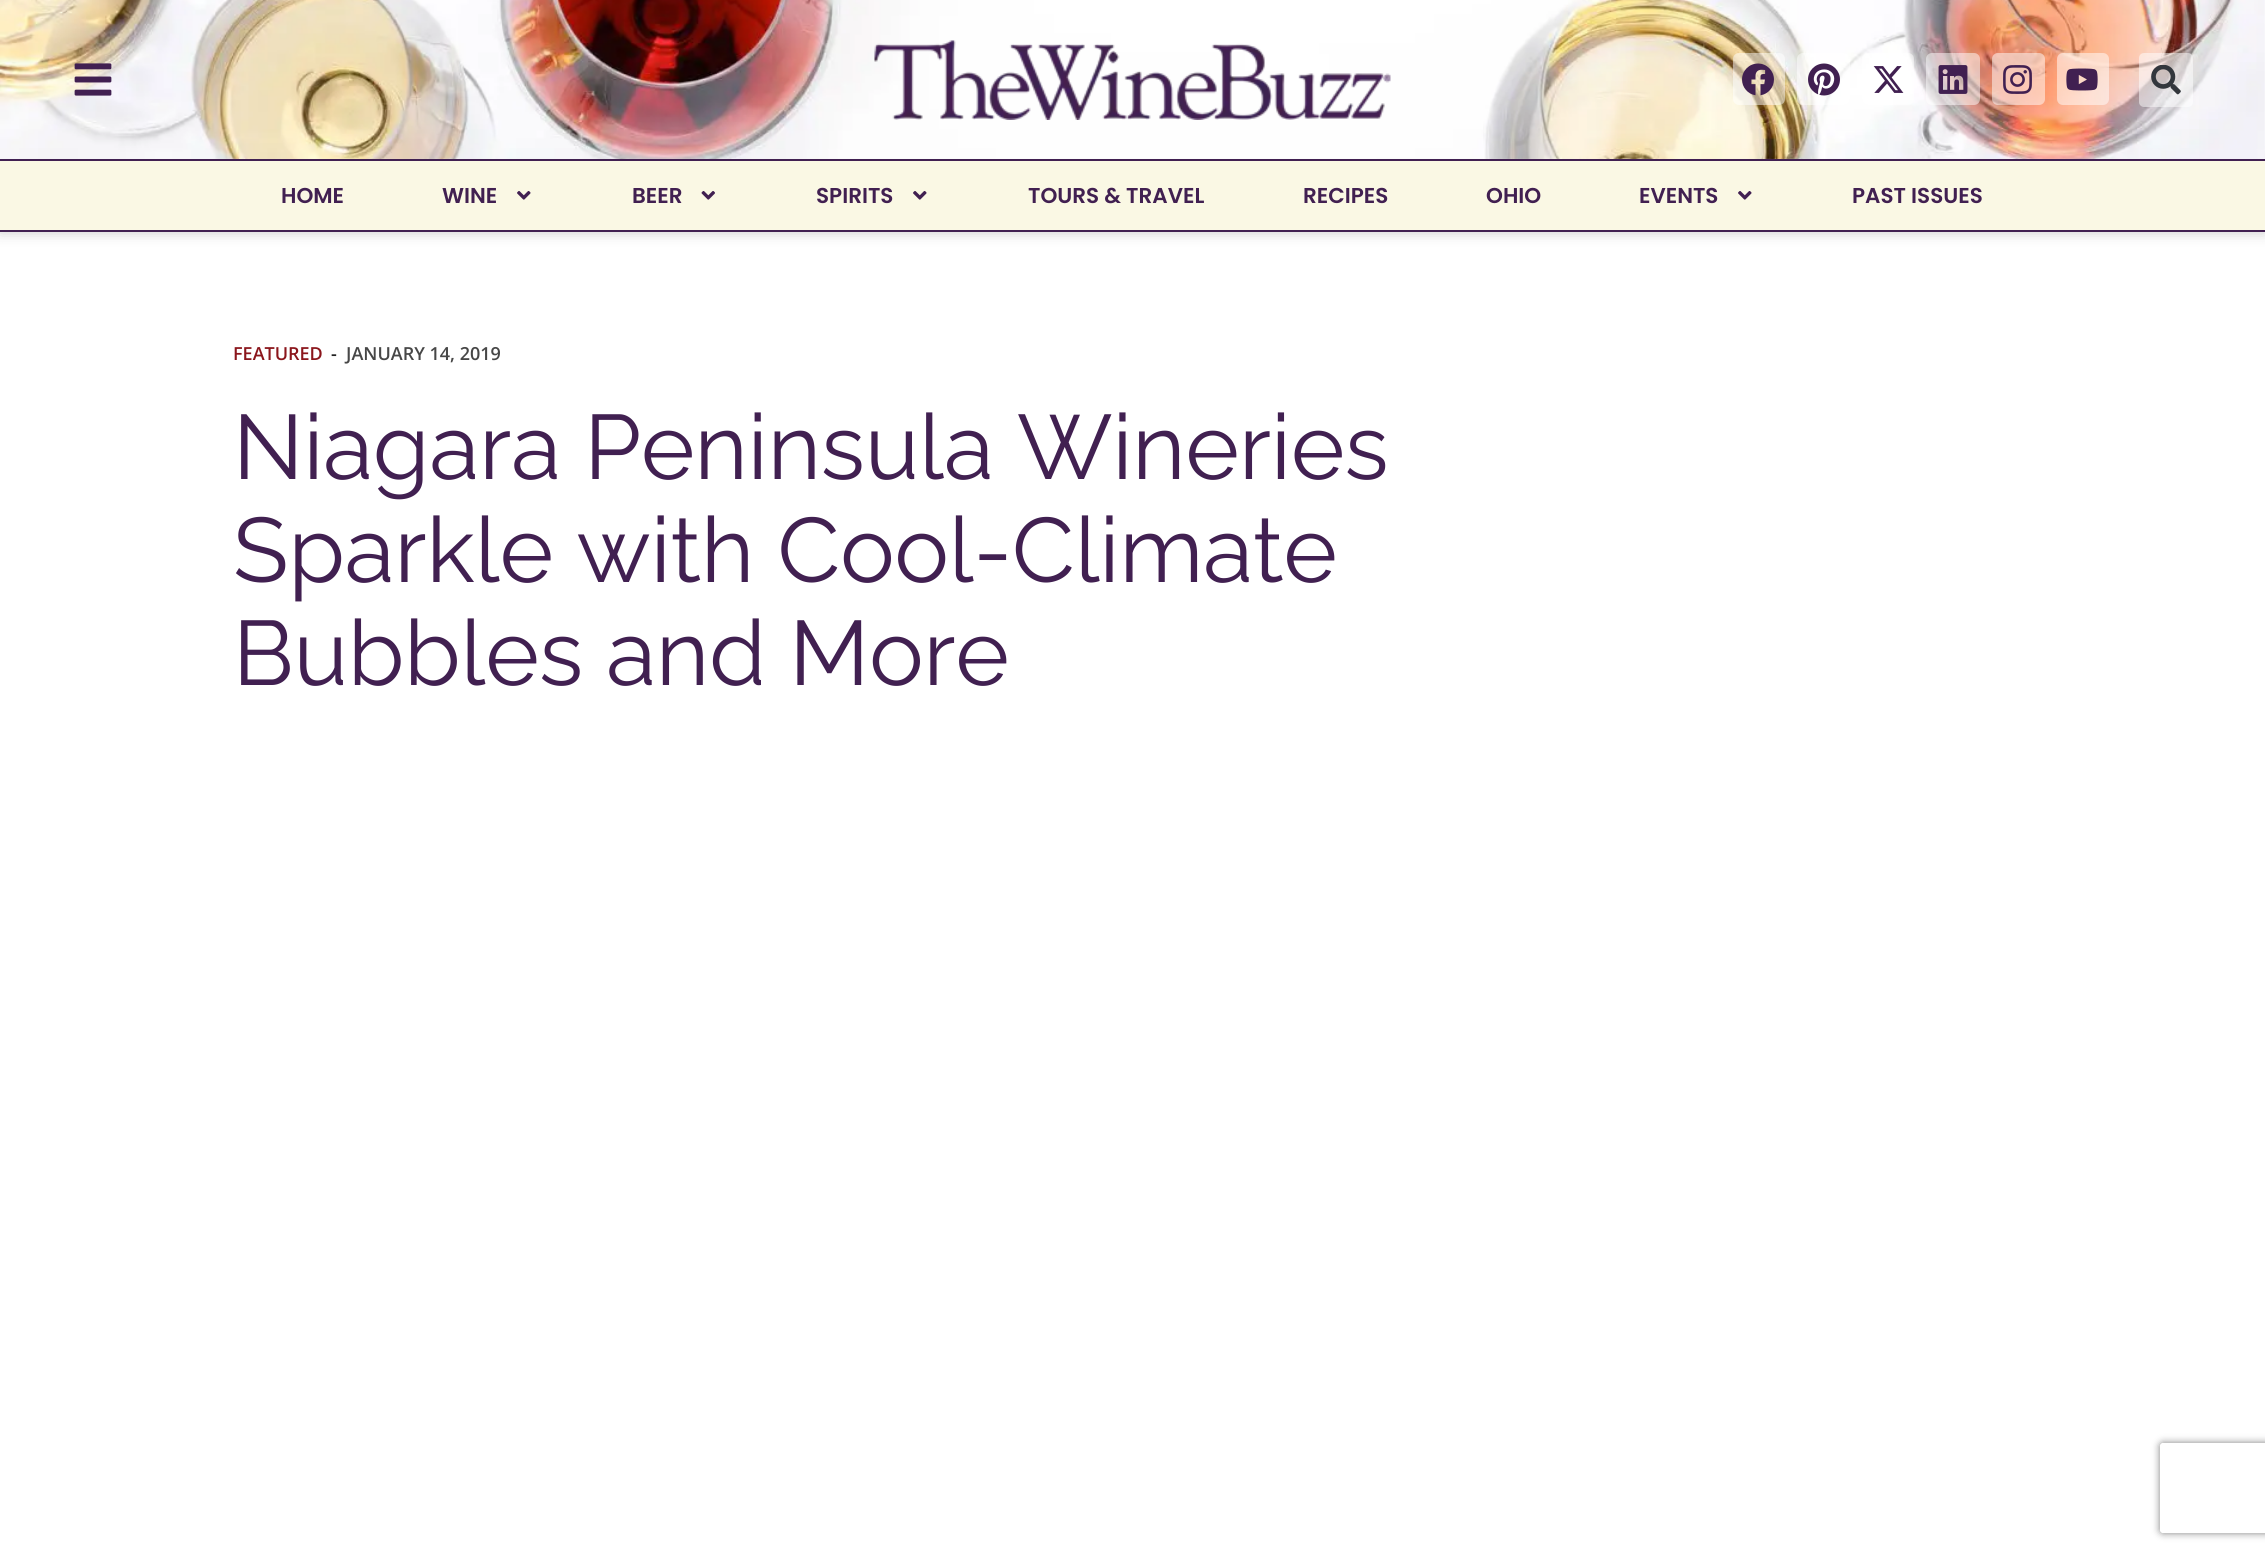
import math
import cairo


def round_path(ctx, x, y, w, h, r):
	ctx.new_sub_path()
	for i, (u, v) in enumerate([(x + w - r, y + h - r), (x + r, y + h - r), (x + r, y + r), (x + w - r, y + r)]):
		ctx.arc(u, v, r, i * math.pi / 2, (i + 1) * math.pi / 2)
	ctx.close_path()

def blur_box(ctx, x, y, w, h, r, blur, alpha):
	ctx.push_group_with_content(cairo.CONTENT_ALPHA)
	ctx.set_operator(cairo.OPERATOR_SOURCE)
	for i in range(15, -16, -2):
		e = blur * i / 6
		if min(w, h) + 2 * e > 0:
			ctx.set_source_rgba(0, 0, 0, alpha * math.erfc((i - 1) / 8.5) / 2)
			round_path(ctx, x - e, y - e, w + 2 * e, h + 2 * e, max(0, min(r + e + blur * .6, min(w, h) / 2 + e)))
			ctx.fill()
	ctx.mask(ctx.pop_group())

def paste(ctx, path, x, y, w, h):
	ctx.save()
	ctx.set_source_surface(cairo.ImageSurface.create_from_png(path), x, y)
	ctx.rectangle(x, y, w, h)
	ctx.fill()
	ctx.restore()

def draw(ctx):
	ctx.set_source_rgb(1, 1, 1)
	ctx.paint()
	ctx.set_source_rgb(0, 0, 0)
	blur_box(ctx, 0, 159, 2265, 72, 0, 7.5, 0.25)
	paste(ctx, 'media/1.png', 0, 0, 2265, 159)
	paste(ctx, 'media/2.png', 74, 63, 38, 33)
	paste(ctx, 'media/3.png', 874, 40, 517, 80)
	ctx.set_source_rgba(1, 1, 1, 0.5)
	round_path(ctx, 1733, 53, 52, 52, 6)
	ctx.fill()
	paste(ctx, 'media/4.png', 1742, 63, 32, 33)
	round_path(ctx, 1797, 53, 53, 52, 6)
	ctx.fill()
	paste(ctx, 'media/5.png', 1808, 63, 32, 33)
	round_path(ctx, 1862, 53, 52, 52, 6)
	ctx.fill()
	paste(ctx, 'media/6.png', 1873, 66, 31, 27)
	round_path(ctx, 1926, 53, 54, 52, 6)
	ctx.fill()
	paste(ctx, 'media/7.png', 1938, 65, 30, 29)
	round_path(ctx, 1992, 53, 53, 52, 6)
	ctx.fill()
	paste(ctx, 'media/8.png', 2003, 65, 29, 29)
	round_path(ctx, 2057, 53, 52, 52, 6)
	ctx.fill()
	paste(ctx, 'media/9.png', 2066, 68, 32, 23)
	round_path(ctx, 2139, 53, 54, 54, 5)
	ctx.fill()
	paste(ctx, 'media/10.png', 2151, 65, 30, 30)
	ctx.set_source_rgb(0.98, 0.969, 0.894)
	ctx.rectangle(0, 161, 2265, 69)
	ctx.fill()
	ctx.set_source_rgb(0.255, 0.125, 0.318)
	ctx.rectangle(0, 159, 2265, 2)
	ctx.rectangle(0, 230, 2265, 2)
	ctx.fill()
	ctx.select_font_face('Poppins SemiBold')
	ctx.set_font_size(21.5)
	ctx.move_to(281, 203)
	ctx.show_text('HOME')
	ctx.move_to(442, 203)
	ctx.show_text('WINE')
	paste(ctx, 'media/11.png', 517, 191, 14, 9)
	ctx.move_to(632, 203)
	ctx.show_text('BEER')
	paste(ctx, 'media/12.png', 701, 191, 14, 9)
	ctx.move_to(816, 203)
	ctx.show_text('SPIRITS')
	paste(ctx, 'media/11.png', 913, 191, 14, 9)
	for x, y, s in [
		(1028, 203, 'TOURS & TRAVEL'),
		(1303, 203, 'RECIPES'),
		(1486, 203, 'OHIO'),
		(1639, 203, 'EVENTS'),
	]:
		ctx.move_to(x, y)
		ctx.show_text(s)
	paste(ctx, 'media/11.png', 1738, 191, 14, 9)
	ctx.move_to(1852, 203)
	ctx.show_text('PAST ISSUES')
	ctx.select_font_face('Open Sans SemiBold')
	ctx.set_font_size(18)
	ctx.set_source_rgb(0.545, 0.086, 0.11)
	ctx.move_to(233, 360)
	ctx.show_text('FEATURED')
	ctx.set_source_rgb(0.133, 0.133, 0.133)
	ctx.move_to(331, 360)
	ctx.show_text('-')
	ctx.set_source_rgb(0.278, 0.278, 0.278)
	ctx.move_to(346, 360)
	ctx.show_text('JANUARY 14, 2019')
	ctx.select_font_face('Raleway')
	ctx.set_font_size(91.25)
	ctx.set_source_rgb(0.255, 0.125, 0.318)
	for x, y, s in [
		(233, 479, 'Niagara Peninsula Wineries'),
		(233, 582, 'Sparkle with Cool-Climate'),
		(233, 685, 'Bubbles and More'),
	]:
		ctx.move_to(x, y)
		ctx.show_text(s)
	ctx.save()
	ctx.set_fill_rule(cairo.FILL_RULE_EVEN_ODD)
	ctx.new_path()
	ctx.move_to(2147, 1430)
	ctx.line_to(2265, 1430)
	ctx.line_to(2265, 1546)
	ctx.line_to(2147, 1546)
	ctx.close_path()
	ctx.move_to(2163, 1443)
	ctx.line_to(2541, 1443)
	ctx.curve_to(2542.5, 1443, 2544, 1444.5, 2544, 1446)
	ctx.line_to(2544, 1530)
	ctx.curve_to(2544, 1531.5, 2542.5, 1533, 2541, 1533)
	ctx.line_to(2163, 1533)
	ctx.curve_to(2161.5, 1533, 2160, 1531.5, 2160, 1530)
	ctx.line_to(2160, 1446)
	ctx.curve_to(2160, 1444.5, 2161.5, 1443, 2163, 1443)
	ctx.close_path()
	ctx.clip()
	ctx.set_source_rgb(0.502, 0.502, 0.502)
	blur_box(ctx, 2160, 1443, 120, 90, 3, 4, 1)
	ctx.restore()


surface = cairo.ImageSurface(cairo.FORMAT_RGB24, 2265, 1553)
ctx = cairo.Context(surface)
options = cairo.FontOptions()
options.set_hint_metrics(cairo.HINT_METRICS_OFF)
options.set_hint_style(cairo.HINT_STYLE_NONE)
ctx.set_font_options(options)
ctx.set_miter_limit(4)
draw(ctx)
surface.write_to_png('image.png')
